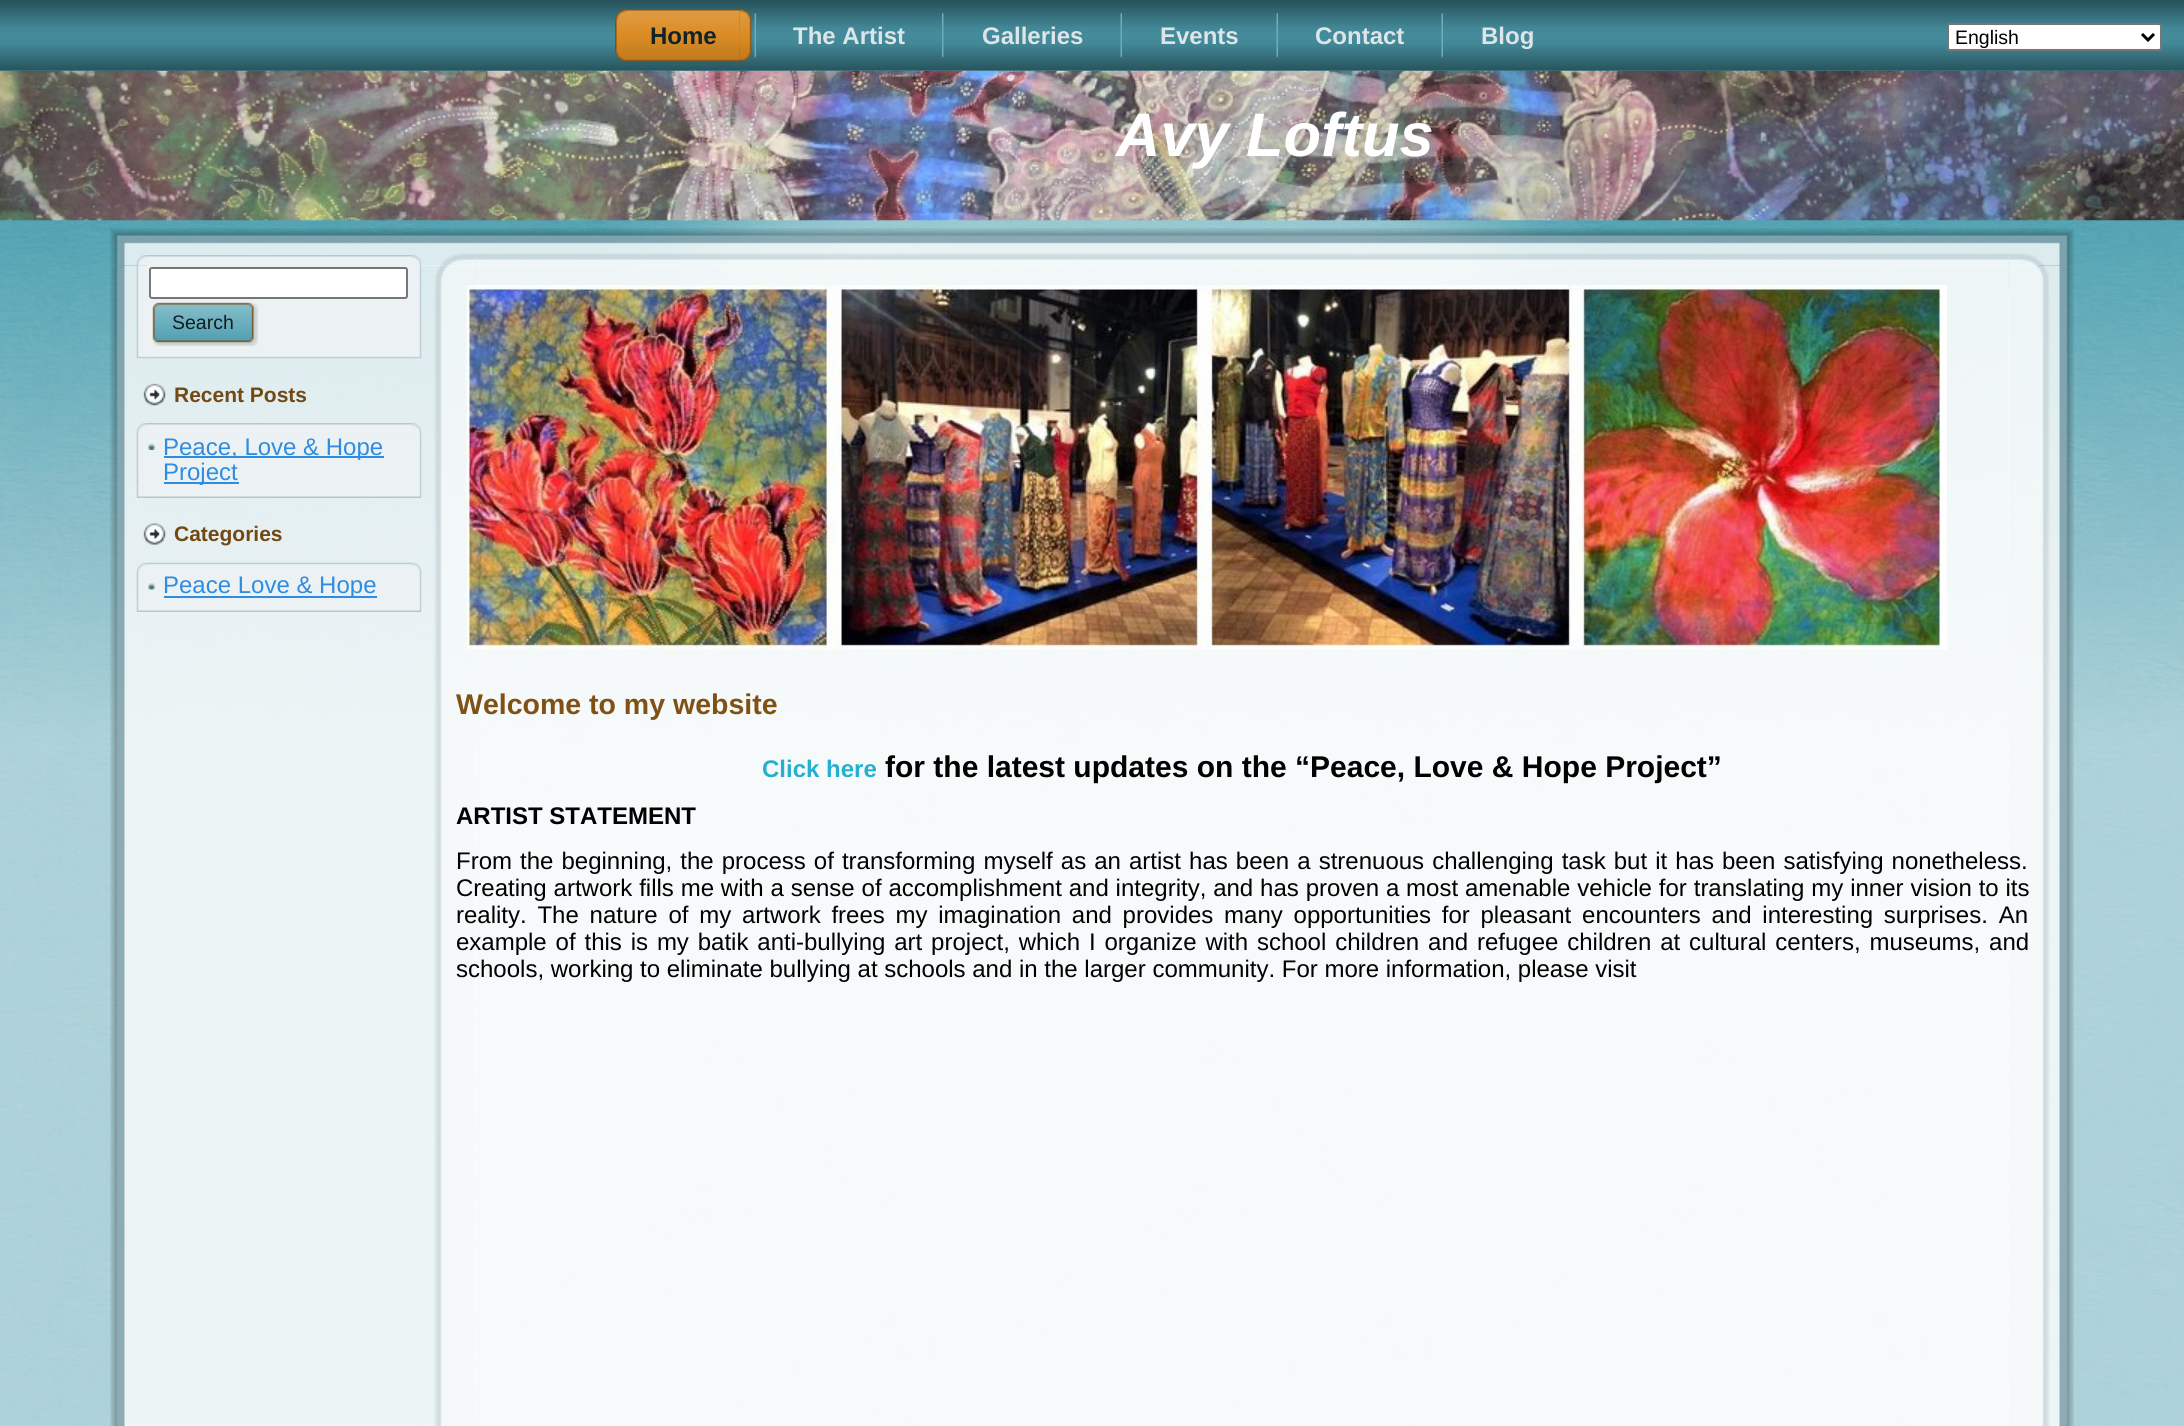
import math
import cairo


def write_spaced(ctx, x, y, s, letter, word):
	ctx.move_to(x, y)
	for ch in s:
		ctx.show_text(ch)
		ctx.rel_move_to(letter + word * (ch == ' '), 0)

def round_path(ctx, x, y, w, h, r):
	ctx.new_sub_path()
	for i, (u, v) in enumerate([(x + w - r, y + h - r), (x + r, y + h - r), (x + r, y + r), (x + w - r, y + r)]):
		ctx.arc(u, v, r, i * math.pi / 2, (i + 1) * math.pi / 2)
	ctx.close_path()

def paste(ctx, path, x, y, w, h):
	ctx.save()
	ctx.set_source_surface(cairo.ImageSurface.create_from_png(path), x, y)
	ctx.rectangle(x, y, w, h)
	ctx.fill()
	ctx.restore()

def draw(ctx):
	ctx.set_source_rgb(1, 1, 1)
	ctx.paint()
	paste(ctx, 'media/1.png', 0, 750, 2184, 676)
	paste(ctx, 'media/2.png', 0, 70, 2184, 680)
	paste(ctx, 'media/49.png', 604, 70, 990, 215)
	paste(ctx, 'media/8.png', 0, 70, 2184, 151)
	paste(ctx, 'media/3.png', 0, 0, 2184, 71)
	paste(ctx, 'media/4.png', 615, 9, 125, 53)
	paste(ctx, 'media/5.png', 739, 9, 13, 53)
	ctx.select_font_face('Liberation Sans', cairo.FONT_SLANT_NORMAL, cairo.FONT_WEIGHT_BOLD)
	ctx.set_font_size(24)
	ctx.set_source_rgb(0.067, 0.137, 0.153)
	ctx.move_to(650, 44)
	ctx.show_text('Home')
	paste(ctx, 'media/6.png', 754, 13, 2, 45)
	ctx.set_source_rgb(0.867, 0.898, 0.914)
	ctx.move_to(793, 44)
	ctx.show_text('The Artist')
	paste(ctx, 'media/7.png', 942, 13, 2, 45)
	ctx.move_to(982, 44)
	ctx.show_text('Galleries')
	paste(ctx, 'media/6.png', 1120, 13, 2, 45)
	ctx.move_to(1160, 44)
	ctx.show_text('Events')
	paste(ctx, 'media/6.png', 1276, 13, 2, 45)
	ctx.move_to(1315, 44)
	ctx.show_text('Contact')
	paste(ctx, 'media/6.png', 1441, 13, 2, 45)
	ctx.move_to(1481, 44)
	ctx.show_text('Blog')
	ctx.select_font_face('Liberation Sans', cairo.FONT_SLANT_ITALIC, cairo.FONT_WEIGHT_BOLD)
	ctx.set_font_size(61.5)
	ctx.set_source_rgb(1, 1, 1)
	ctx.move_to(1116, 156)
	ctx.show_text('Avy Loftus')
	paste(ctx, 'media/9.png', 110, 228, 37, 38)
	paste(ctx, 'media/10.png', 147, 228, 1890, 38)
	paste(ctx, 'media/11.png', 2037, 228, 37, 38)
	paste(ctx, 'media/12.png', 110, 265, 37, 1161)
	ctx.set_source_rgba(0.988, 0.988, 0.988, 0.8)
	ctx.rectangle(147, 265, 1890, 1161)
	ctx.fill()
	paste(ctx, 'media/13.png', 2037, 265, 37, 1161)
	paste(ctx, 'media/14.png', 136, 255, 11, 11)
	paste(ctx, 'media/15.png', 147, 255, 264, 10)
	paste(ctx, 'media/16.png', 411, 255, 11, 11)
	paste(ctx, 'media/17.png', 136, 265, 11, 83)
	ctx.set_source_rgb(0.925, 0.945, 0.953)
	ctx.rectangle(147, 266, 264, 82)
	ctx.fill()
	paste(ctx, 'media/18.png', 411, 265, 11, 83)
	ctx.set_source_rgb(1, 1, 1)
	round_path(ctx, 150, 268, 257, 30, 2)
	ctx.fill_preserve()
	ctx.set_source_rgb(0.463, 0.463, 0.463)
	ctx.stroke()
	paste(ctx, 'media/19.png', 152, 302, 91, 44)
	paste(ctx, 'media/20.png', 243, 302, 15, 44)
	ctx.select_font_face('Liberation Sans')
	ctx.set_font_size(19.5)
	ctx.set_source_rgb(0.078, 0.11, 0.122)
	ctx.move_to(172, 329)
	ctx.show_text('Search')
	paste(ctx, 'media/21.png', 136, 348, 11, 11)
	paste(ctx, 'media/22.png', 147, 348, 264, 11)
	paste(ctx, 'media/23.png', 411, 348, 11, 11)
	paste(ctx, 'media/24.png', 143, 383, 23, 23)
	ctx.select_font_face('Liberation Sans', cairo.FONT_SLANT_NORMAL, cairo.FONT_WEIGHT_BOLD)
	ctx.set_font_size(21)
	ctx.set_source_rgb(0.447, 0.286, 0.075)
	ctx.move_to(174, 402)
	ctx.show_text('Recent Posts')
	paste(ctx, 'media/25.png', 136, 423, 11, 11)
	paste(ctx, 'media/26.png', 147, 423, 264, 11)
	paste(ctx, 'media/27.png', 411, 423, 11, 11)
	paste(ctx, 'media/31.png', 136, 487, 11, 11)
	paste(ctx, 'media/28.png', 136, 433, 11, 55)
	ctx.set_source_rgb(0.925, 0.945, 0.953)
	ctx.rectangle(147, 434, 264, 54)
	ctx.fill()
	paste(ctx, 'media/33.png', 411, 487, 11, 11)
	paste(ctx, 'media/29.png', 411, 433, 11, 55)
	paste(ctx, 'media/30.png', 148, 443, 7, 7)
	ctx.set_source_rgb(0.18, 0.553, 0.878)
	ctx.rectangle(164, 456, 220, 2)
	ctx.fill()
	ctx.select_font_face('Liberation Sans')
	ctx.set_font_size(24)
	ctx.move_to(163, 455)
	ctx.show_text('Peace, Love & Hope')
	ctx.rectangle(164, 482, 75, 2)
	ctx.fill()
	ctx.move_to(163, 480)
	ctx.show_text('Project')
	paste(ctx, 'media/32.png', 147, 488, 264, 10)
	paste(ctx, 'media/34.png', 143, 523, 23, 22)
	ctx.select_font_face('Liberation Sans', cairo.FONT_SLANT_NORMAL, cairo.FONT_WEIGHT_BOLD)
	ctx.set_font_size(21)
	ctx.set_source_rgb(0.447, 0.286, 0.075)
	ctx.move_to(174, 541)
	ctx.show_text('Categories')
	paste(ctx, 'media/35.png', 136, 562, 11, 11)
	paste(ctx, 'media/36.png', 147, 562, 264, 11)
	paste(ctx, 'media/37.png', 411, 562, 11, 11)
	paste(ctx, 'media/41.png', 136, 601, 11, 11)
	paste(ctx, 'media/38.png', 136, 573, 11, 29)
	ctx.set_source_rgb(0.925, 0.945, 0.953)
	ctx.rectangle(147, 573, 264, 29)
	ctx.fill()
	paste(ctx, 'media/42.png', 411, 601, 11, 11)
	paste(ctx, 'media/39.png', 411, 573, 11, 29)
	paste(ctx, 'media/40.png', 148, 583, 7, 7)
	ctx.set_source_rgb(0.18, 0.553, 0.878)
	ctx.rectangle(164, 596, 213, 2)
	ctx.fill()
	ctx.select_font_face('Liberation Sans')
	ctx.set_font_size(24)
	ctx.move_to(163, 593)
	ctx.show_text('Peace Love & Hope')
	paste(ctx, 'media/32.png', 147, 602, 264, 10)
	paste(ctx, 'media/43.png', 435, 253, 41, 41)
	paste(ctx, 'media/45.png', 2008, 253, 41, 41)
	paste(ctx, 'media/44.png', 475, 253, 1534, 41)
	paste(ctx, 'media/46.png', 434, 294, 42, 1132)
	paste(ctx, 'media/47.png', 2008, 294, 42, 1132)
	ctx.set_source_rgba(1, 1, 1, 0.5)
	ctx.rectangle(475, 294, 1534, 1132)
	ctx.fill()
	paste(ctx, 'media/48.png', 466, 285, 1481, 365)
	ctx.select_font_face('Liberation Sans', cairo.FONT_SLANT_NORMAL, cairo.FONT_WEIGHT_BOLD)
	ctx.set_font_size(28.5)
	ctx.set_source_rgb(0.498, 0.318, 0.082)
	ctx.move_to(456, 714)
	ctx.show_text('Welcome to my website')
	ctx.set_font_size(24)
	ctx.set_source_rgb(0.149, 0.69, 0.812)
	ctx.move_to(762, 777)
	ctx.show_text('Click here')
	ctx.set_font_size(30)
	ctx.set_source_rgb(0, 0, 0)
	ctx.move_to(885, 777)
	ctx.show_text('for the latest updates on the “Peace, Love & Hope Project”')
	ctx.set_font_size(24)
	ctx.move_to(456, 824)
	ctx.show_text('ARTIST STATEMENT')
	ctx.select_font_face('Liberation Sans')
	write_spaced(ctx, 456, 869, 'From the beginning, the process of transforming myself as an artist has been a strenuous challenging task but it has been satisfying nonetheless.', 0, 1.4)
	write_spaced(ctx, 456, 896, 'Creating artwork fills me with a sense of accomplishment and integrity, and has proven a most amenable vehicle for translating my inner vision to its', 0, 0.2)
	write_spaced(ctx, 456, 923, 'reality. The nature of my artwork frees my imagination and provides many opportunities for pleasant encounters and interesting surprises. An', 0, 4.1)
	write_spaced(ctx, 456, 950, 'example of this is my batik anti-bullying art project, which I organize with school children and refugee children at cultural centers, museums, and', 0, 2.2)
	ctx.move_to(456, 977)
	ctx.show_text('schools, working to eliminate bullying at schools and in the larger community. For more information, please visit')
	ctx.set_source_rgb(1, 1, 1)
	round_path(ctx, 1948, 24, 213, 26, 2)
	ctx.fill_preserve()
	ctx.set_source_rgb(0.463, 0.463, 0.463)
	ctx.stroke()
	ctx.new_path()
	ctx.move_to(2142, 34)
	ctx.line_to(2148, 40)
	ctx.line_to(2154, 34)
	ctx.set_source_rgb(0, 0, 0)
	ctx.set_line_width(3)
	ctx.stroke()
	ctx.set_font_size(19.5)
	ctx.move_to(1955, 44)
	ctx.show_text('English')


surface = cairo.ImageSurface(cairo.FORMAT_RGB24, 2184, 1426)
ctx = cairo.Context(surface)
options = cairo.FontOptions()
options.set_hint_metrics(cairo.HINT_METRICS_OFF)
options.set_hint_style(cairo.HINT_STYLE_NONE)
ctx.set_font_options(options)
ctx.set_miter_limit(4)
draw(ctx)
surface.write_to_png('image.png')
